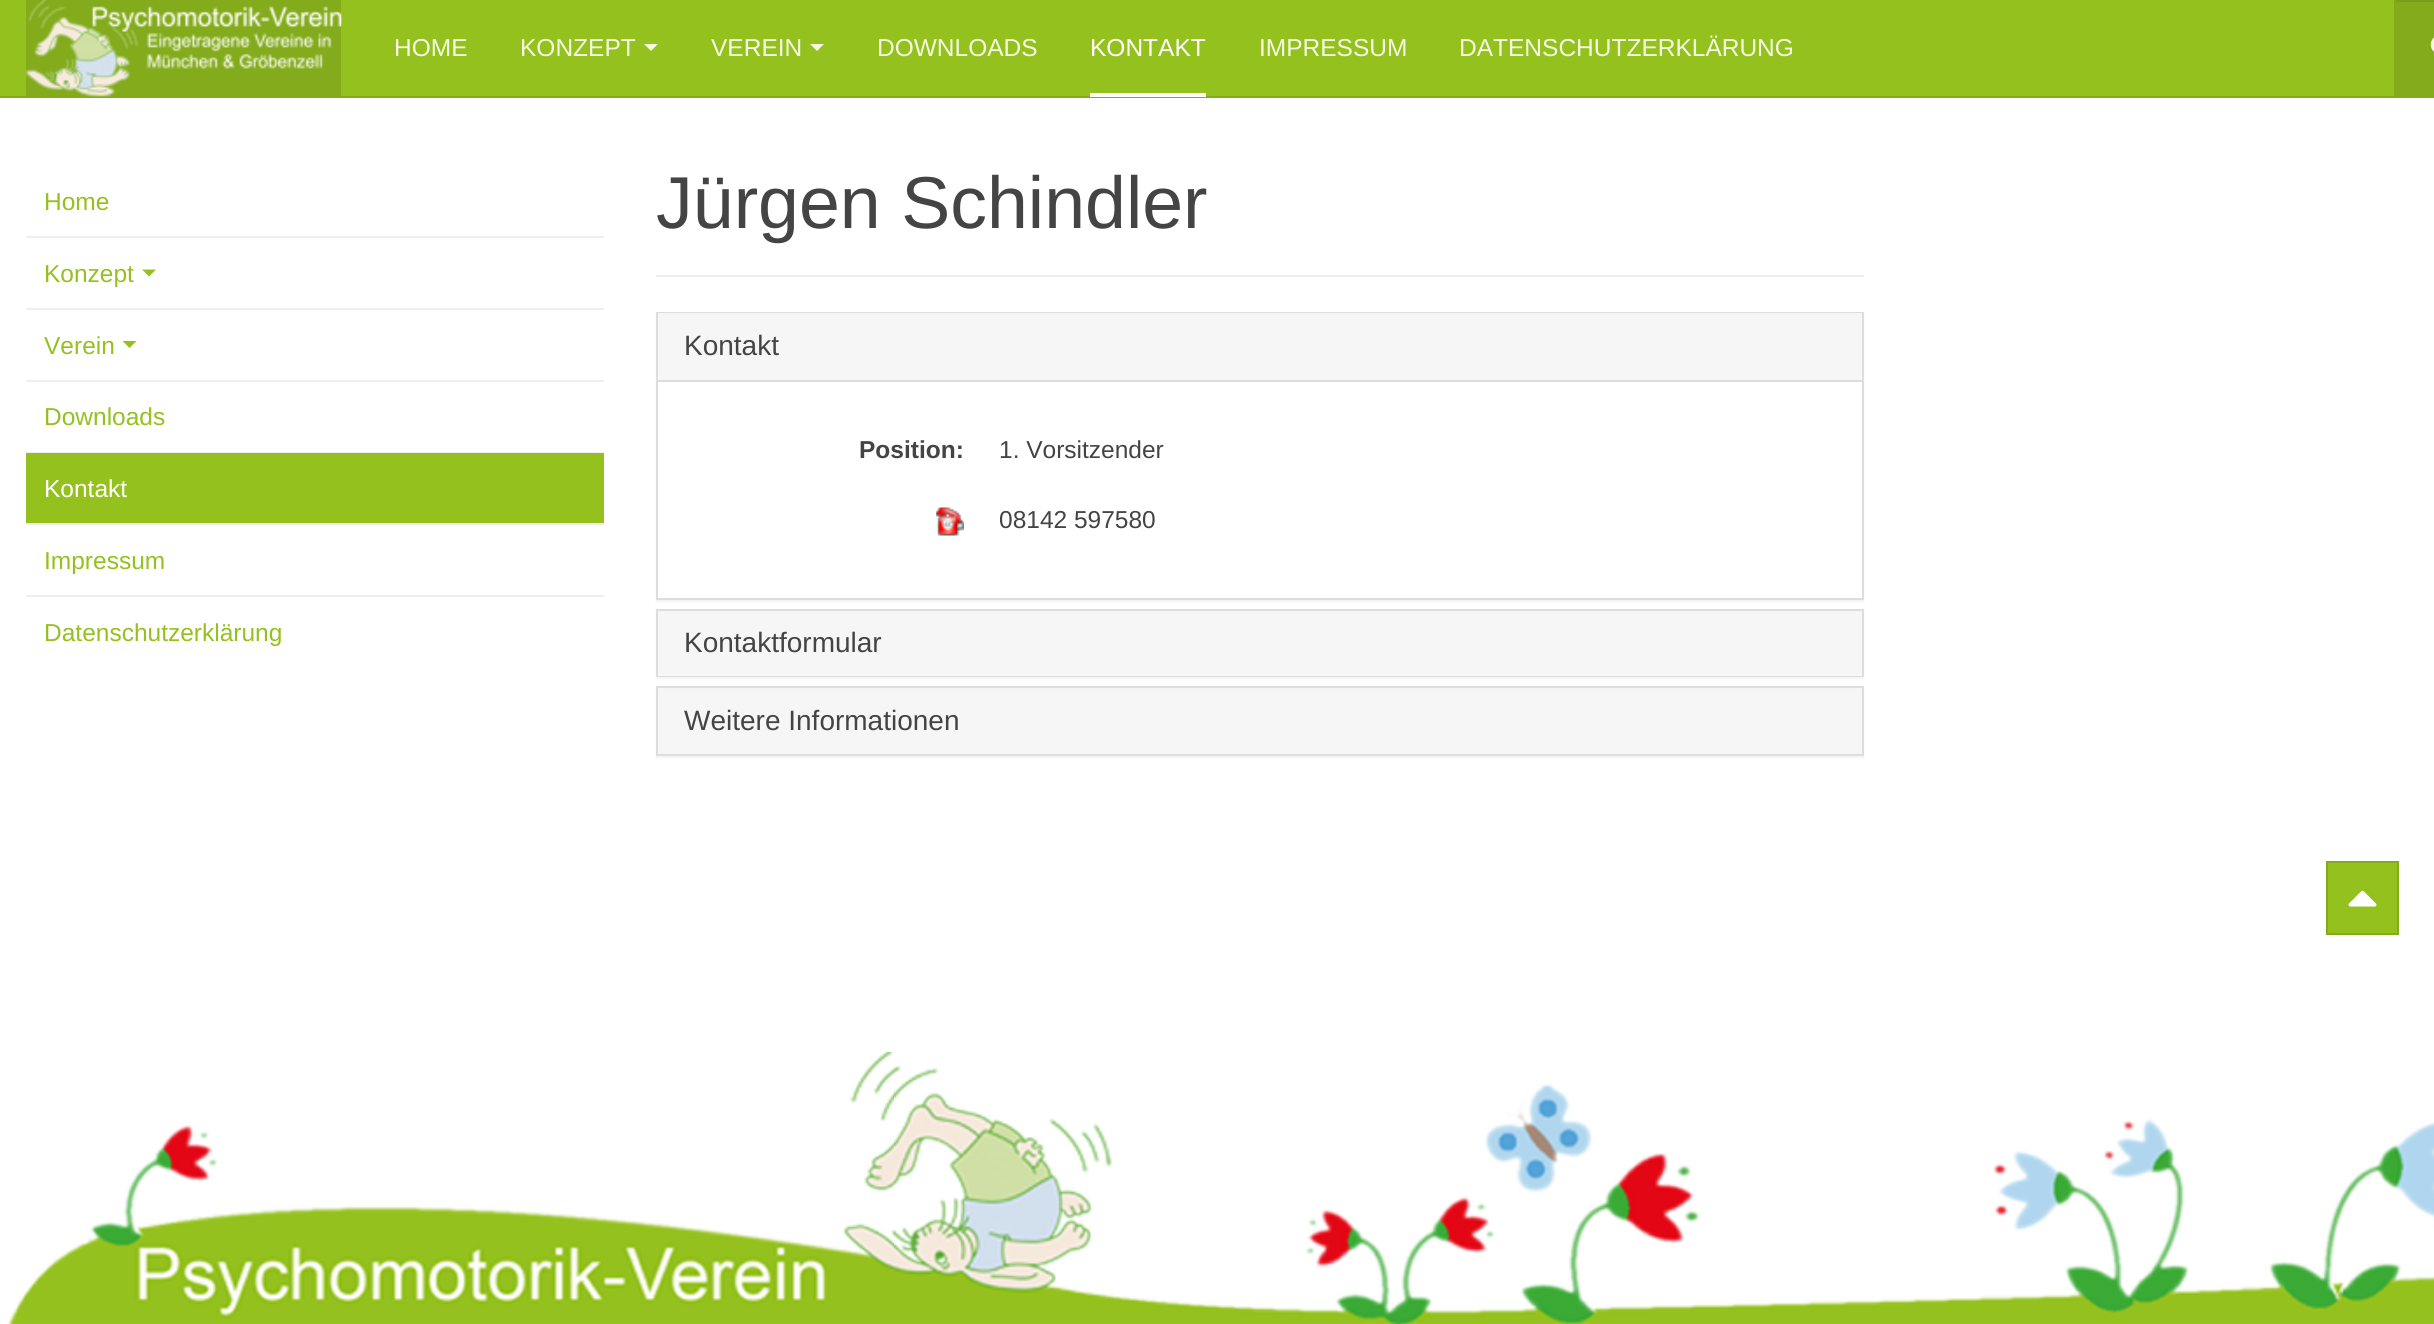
import math
import cairo


def round_path(ctx, x, y, w, h, r):
	ctx.new_sub_path()
	for i, (u, v) in enumerate([(x + w - r, y + h - r), (x + r, y + h - r), (x + r, y + r), (x + w - r, y + r)]):
		ctx.arc(u, v, r, i * math.pi / 2, (i + 1) * math.pi / 2)
	ctx.close_path()

def blur_box(ctx, x, y, w, h, r, blur, alpha):
	ctx.push_group_with_content(cairo.CONTENT_ALPHA)
	ctx.set_operator(cairo.OPERATOR_SOURCE)
	for i in range(15, -16, -2):
		e = blur * i / 6
		if min(w, h) + 2 * e > 0:
			ctx.set_source_rgba(0, 0, 0, alpha * math.erfc((i - 1) / 8.5) / 2)
			round_path(ctx, x - e, y - e, w + 2 * e, h + 2 * e, max(0, min(r + e + blur * .6, min(w, h) / 2 + e)))
			ctx.fill()
	ctx.mask(ctx.pop_group())

def paste(ctx, path, x, y, w, h):
	ctx.save()
	ctx.set_source_surface(cairo.ImageSurface.create_from_png(path), x, y)
	ctx.rectangle(x, y, w, h)
	ctx.fill()
	ctx.restore()

def draw(ctx):
	ctx.set_source_rgb(1, 1, 1)
	ctx.paint()
	ctx.set_source_rgb(0.58, 0.757, 0.118)
	ctx.rectangle(0, 0, 2394, 96)
	ctx.fill()
	ctx.set_source_rgb(0.514, 0.671, 0.106)
	ctx.rectangle(0, 96, 2434, 2)
	ctx.rectangle(26, 0, 315, 96)
	ctx.fill()
	paste(ctx, 'media/1.png', 26, 0, 316, 97)
	ctx.rectangle(2394, 0, 40, 96)
	ctx.fill()
	ctx.set_source_rgb(0.475, 0.62, 0.098)
	ctx.rectangle(2396, 0, 38, 2)
	ctx.fill()
	paste(ctx, 'media/2.png', 2430, 37, 4, 15)
	ctx.select_font_face('Liberation Sans')
	ctx.set_font_size(24.5)
	ctx.set_source_rgb(0.957, 0.984, 0.89)
	ctx.move_to(394, 56)
	ctx.show_text('HOME')
	ctx.move_to(520, 56)
	ctx.show_text('KONZEPT')
	ctx.new_path()
	ctx.move_to(644, 44)
	ctx.line_to(658, 44)
	ctx.line_to(651, 51)
	ctx.close_path()
	ctx.fill()
	ctx.move_to(711, 56)
	ctx.show_text('VEREIN')
	ctx.new_path()
	ctx.move_to(810, 44)
	ctx.line_to(824, 44)
	ctx.line_to(817, 51)
	ctx.close_path()
	ctx.fill()
	ctx.move_to(877, 56)
	ctx.show_text('DOWNLOADS')
	ctx.set_source_rgb(1, 1, 1)
	ctx.rectangle(1090, 93, 116, 4)
	ctx.fill()
	ctx.move_to(1090, 56)
	ctx.show_text('KONTAKT')
	ctx.set_source_rgb(0.957, 0.984, 0.89)
	ctx.move_to(1259, 56)
	ctx.show_text('IMPRESSUM')
	ctx.move_to(1459, 56)
	ctx.show_text('DATENSCHUTZERKLÄRUNG')
	ctx.set_source_rgb(0.58, 0.757, 0.118)
	ctx.move_to(44, 210)
	ctx.show_text('Home')
	ctx.set_source_rgb(0.933, 0.933, 0.933)
	ctx.rectangle(26, 236, 578, 2)
	ctx.fill()
	ctx.set_source_rgb(0.58, 0.757, 0.118)
	ctx.move_to(44, 282)
	ctx.show_text('Konzept')
	ctx.new_path()
	ctx.move_to(142, 269.5)
	ctx.line_to(156, 269.5)
	ctx.line_to(149, 276.5)
	ctx.close_path()
	ctx.fill()
	ctx.set_source_rgb(0.933, 0.933, 0.933)
	ctx.rectangle(26, 308, 578, 2)
	ctx.fill()
	ctx.set_source_rgb(0.58, 0.757, 0.118)
	ctx.move_to(44, 354)
	ctx.show_text('Verein')
	ctx.new_path()
	ctx.move_to(122.5, 341)
	ctx.line_to(136.5, 341)
	ctx.line_to(129.5, 348)
	ctx.close_path()
	ctx.fill()
	ctx.set_source_rgb(0.933, 0.933, 0.933)
	ctx.rectangle(26, 380, 578, 2)
	ctx.fill()
	ctx.set_source_rgb(0.58, 0.757, 0.118)
	ctx.move_to(44, 425)
	ctx.show_text('Downloads')
	ctx.set_source_rgb(0.933, 0.933, 0.933)
	ctx.rectangle(26, 452, 578, 1)
	ctx.fill()
	ctx.set_source_rgb(0.58, 0.757, 0.118)
	ctx.rectangle(26, 453, 578, 70)
	ctx.fill()
	ctx.set_source_rgb(1, 1, 1)
	ctx.move_to(44, 497)
	ctx.show_text('Kontakt')
	ctx.set_source_rgb(0.933, 0.933, 0.933)
	ctx.rectangle(26, 523, 578, 2)
	ctx.fill()
	ctx.set_source_rgb(0.58, 0.757, 0.118)
	ctx.move_to(44, 569)
	ctx.show_text('Impressum')
	ctx.set_source_rgb(0.933, 0.933, 0.933)
	ctx.rectangle(26, 595, 578, 2)
	ctx.fill()
	ctx.set_source_rgb(0.58, 0.757, 0.118)
	ctx.move_to(44, 641)
	ctx.show_text('Datenschutzerklärung')
	ctx.set_source_rgb(0.933, 0.933, 0.933)
	ctx.rectangle(656, 275, 1208, 2)
	ctx.fill()
	ctx.set_font_size(73.5)
	ctx.set_source_rgb(0.267, 0.267, 0.267)
	ctx.move_to(656, 228)
	ctx.show_text('Jürgen Schindler')
	ctx.set_source_rgb(0, 0, 0)
	blur_box(ctx, 656, 313, 1208, 289, 0, 1, 0.05)
	ctx.set_source_rgb(1, 1, 1)
	ctx.rectangle(658, 382, 1204, 216)
	ctx.fill()
	ctx.rectangle(657, 313, 1206, 286)
	ctx.set_source_rgb(0.867, 0.867, 0.867)
	ctx.stroke()
	ctx.set_source_rgb(0.961, 0.961, 0.961)
	ctx.rectangle(658, 313, 1204, 67)
	ctx.fill()
	ctx.set_font_size(28)
	ctx.set_source_rgb(0.267, 0.267, 0.267)
	ctx.move_to(684, 355)
	ctx.show_text('Kontakt')
	ctx.set_source_rgb(0.867, 0.867, 0.867)
	ctx.rectangle(658, 380, 1204, 2)
	ctx.fill()
	ctx.select_font_face('Liberation Sans', cairo.FONT_SLANT_NORMAL, cairo.FONT_WEIGHT_BOLD)
	ctx.set_font_size(24.5)
	ctx.set_source_rgb(0.267, 0.267, 0.267)
	ctx.move_to(859, 458)
	ctx.show_text('Position:')
	ctx.select_font_face('Liberation Sans')
	ctx.move_to(999, 458)
	ctx.show_text('1. Vorsitzender')
	paste(ctx, 'media/3.png', 936, 507, 29, 29)
	ctx.move_to(999, 528)
	ctx.show_text('08142 597580')
	ctx.set_source_rgb(0, 0, 0)
	blur_box(ctx, 656, 611, 1208, 68, 0, 1, 0.05)
	ctx.rectangle(657, 610, 1206, 66)
	ctx.set_source_rgb(0.867, 0.867, 0.867)
	ctx.stroke()
	ctx.set_source_rgb(0.961, 0.961, 0.961)
	ctx.rectangle(658, 613, 1204, 63)
	ctx.fill()
	ctx.set_font_size(28)
	ctx.set_source_rgb(0.267, 0.267, 0.267)
	ctx.move_to(684, 652)
	ctx.show_text('Kontaktformular')
	ctx.set_source_rgb(0, 0, 0)
	blur_box(ctx, 656, 688, 1208, 70, 0, 1, 0.05)
	ctx.rectangle(657, 687, 1206, 68)
	ctx.set_source_rgb(0.867, 0.867, 0.867)
	ctx.stroke()
	ctx.set_source_rgb(0.961, 0.961, 0.961)
	ctx.rectangle(658, 690, 1204, 64)
	ctx.fill()
	ctx.set_source_rgb(0.267, 0.267, 0.267)
	ctx.move_to(684, 730)
	ctx.show_text('Weitere Informationen')
	ctx.set_source_rgb(0.58, 0.757, 0.118)
	ctx.rectangle(2327, 862, 71, 72)
	ctx.fill_preserve()
	ctx.set_source_rgb(0.514, 0.671, 0.106)
	ctx.stroke()
	paste(ctx, 'media/4.png', 2348, 890, 29, 17)
	paste(ctx, 'media/5.png', 7, 1052, 2427, 272)


surface = cairo.ImageSurface(cairo.FORMAT_RGB24, 2434, 1324)
ctx = cairo.Context(surface)
options = cairo.FontOptions()
options.set_hint_metrics(cairo.HINT_METRICS_OFF)
options.set_hint_style(cairo.HINT_STYLE_NONE)
ctx.set_font_options(options)
ctx.set_miter_limit(4)
draw(ctx)
surface.write_to_png('image.png')
